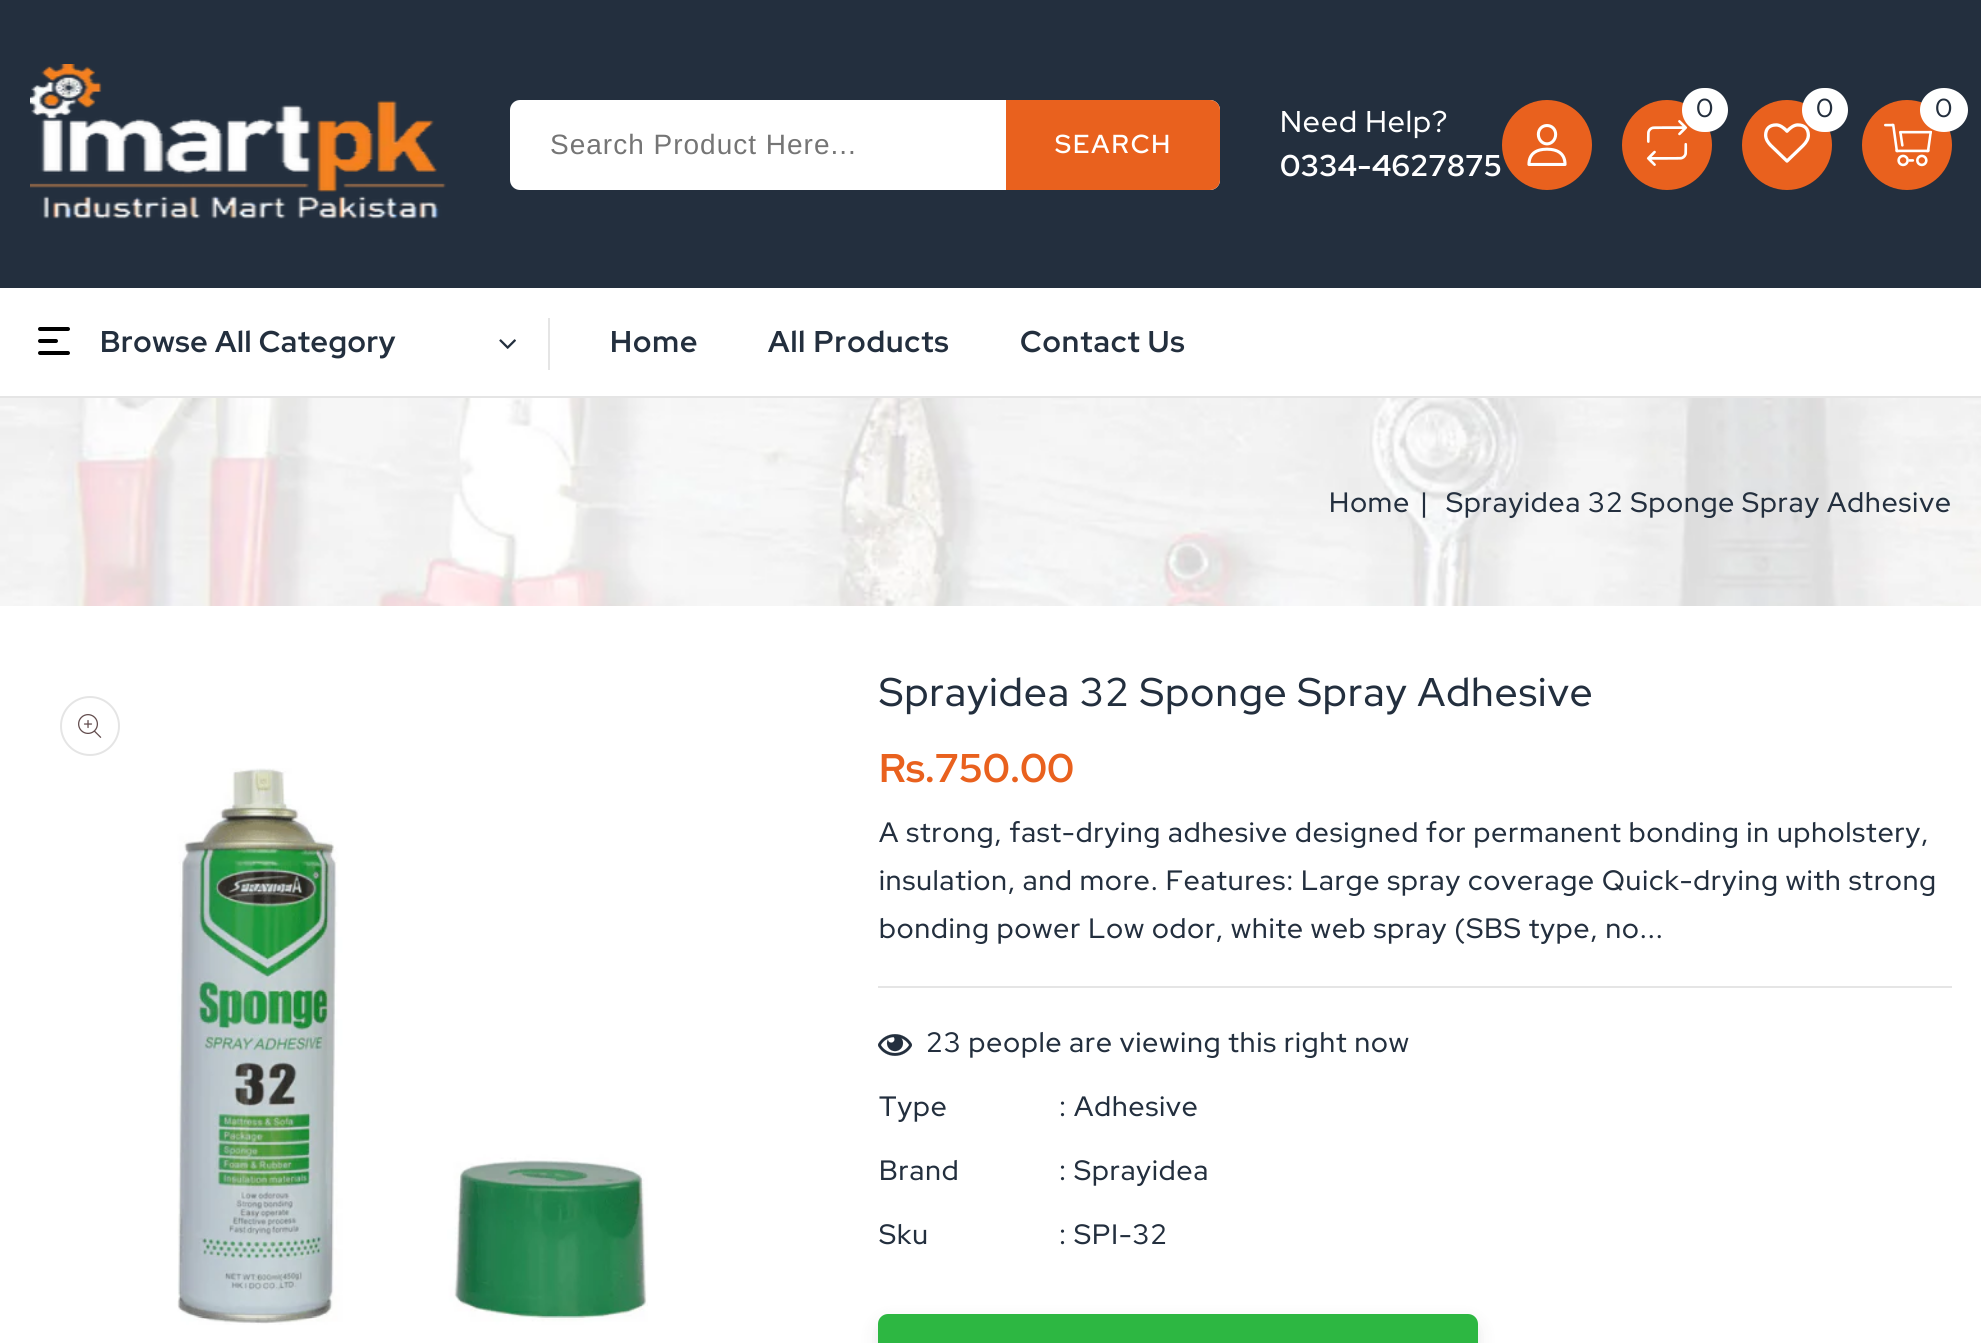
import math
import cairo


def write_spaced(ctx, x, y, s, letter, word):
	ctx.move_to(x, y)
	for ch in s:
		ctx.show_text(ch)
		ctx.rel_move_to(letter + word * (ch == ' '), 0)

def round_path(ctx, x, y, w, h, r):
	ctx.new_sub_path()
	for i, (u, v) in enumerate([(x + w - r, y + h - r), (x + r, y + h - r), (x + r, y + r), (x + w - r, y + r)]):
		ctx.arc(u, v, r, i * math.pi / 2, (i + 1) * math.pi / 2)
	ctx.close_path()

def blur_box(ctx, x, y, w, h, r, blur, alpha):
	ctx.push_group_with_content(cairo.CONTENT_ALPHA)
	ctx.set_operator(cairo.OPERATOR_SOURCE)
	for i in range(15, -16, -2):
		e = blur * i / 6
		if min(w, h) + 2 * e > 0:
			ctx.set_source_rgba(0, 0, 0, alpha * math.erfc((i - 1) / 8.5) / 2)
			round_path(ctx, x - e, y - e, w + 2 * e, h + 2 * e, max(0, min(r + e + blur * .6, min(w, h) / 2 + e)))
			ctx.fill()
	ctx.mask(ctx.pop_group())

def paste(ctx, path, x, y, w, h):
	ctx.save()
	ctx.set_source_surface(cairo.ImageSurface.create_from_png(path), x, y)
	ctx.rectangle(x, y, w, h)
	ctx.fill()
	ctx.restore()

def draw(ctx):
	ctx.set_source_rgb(1, 1, 1)
	ctx.paint()
	ctx.set_source_rgb(0.137, 0.184, 0.243)
	ctx.rectangle(0, 0, 1981, 288)
	ctx.fill()
	paste(ctx, 'media/1.png', 30, 64, 416, 155)
	ctx.set_source_rgb(0.914, 0.38, 0.118)
	ctx.arc(1547, 145, 45, 0, 2 * math.pi)
	ctx.fill()
	paste(ctx, 'media/2.png', 1527, 124, 40, 42)
	ctx.arc(1667, 145, 45, 0, 2 * math.pi)
	ctx.fill()
	paste(ctx, 'media/3.png', 1646, 120, 42, 46)
	ctx.set_source_rgb(1, 1, 1)
	round_path(ctx, 1682, 88, 46, 44, 22)
	ctx.fill()
	ctx.select_font_face('Red Hat Display Medium')
	ctx.set_font_size(26)
	ctx.set_source_rgb(0.137, 0.184, 0.243)
	write_spaced(ctx, 1696, 117, '0', 1, 0)
	ctx.set_source_rgb(0.914, 0.38, 0.118)
	ctx.new_path()
	ctx.arc(1787, 145, 45, 0, 2 * math.pi)
	ctx.fill()
	paste(ctx, 'media/4.png', 1764, 123, 46, 40)
	ctx.set_source_rgb(1, 1, 1)
	round_path(ctx, 1802, 88, 46, 44, 22)
	ctx.fill()
	ctx.set_source_rgb(0.137, 0.184, 0.243)
	write_spaced(ctx, 1816, 117, '0', 1, 0)
	ctx.set_source_rgb(0.914, 0.38, 0.118)
	ctx.new_path()
	ctx.arc(1907, 145, 45, 0, 2 * math.pi)
	ctx.fill()
	paste(ctx, 'media/5.png', 1884, 123, 48, 44)
	ctx.set_source_rgb(1, 1, 1)
	ctx.new_path()
	ctx.move_to(1944, 88)
	ctx.curve_to(1957.5, 88, 1968, 98, 1968, 110)
	ctx.curve_to(1968, 122, 1957.5, 132, 1944, 132)
	ctx.curve_to(1930.5, 132, 1920, 122, 1920, 110)
	ctx.curve_to(1920, 98, 1930.5, 88, 1944, 88)
	ctx.close_path()
	ctx.fill()
	ctx.set_source_rgb(0.137, 0.184, 0.243)
	write_spaced(ctx, 1935, 117, '0', 1, 0)
	ctx.set_source_rgb(1, 1, 1)
	round_path(ctx, 510, 100, 710, 90, 10)
	ctx.fill()
	ctx.select_font_face('Liberation Sans')
	ctx.set_font_size(28)
	ctx.set_source_rgb(0.459, 0.459, 0.459)
	write_spaced(ctx, 550, 154, 'Search Product Here...', 1, 0)
	ctx.set_source_rgb(0.914, 0.38, 0.118)
	ctx.new_path()
	ctx.move_to(1006, 100)
	ctx.line_to(1210, 100)
	ctx.curve_to(1215.5, 100, 1220, 104.5, 1220, 110)
	ctx.line_to(1220, 180)
	ctx.curve_to(1220, 185.5, 1215.5, 190, 1210, 190)
	ctx.line_to(1006, 190)
	ctx.close_path()
	ctx.fill()
	ctx.select_font_face('Red Hat Display SemiBold')
	ctx.set_font_size(26)
	ctx.set_source_rgb(1, 1, 1)
	write_spaced(ctx, 1055, 153, 'SEARCH', 2, 0)
	ctx.select_font_face('Red Hat Display Medium')
	ctx.set_font_size(30)
	write_spaced(ctx, 1280, 132, 'Need Help?', 1, 0)
	ctx.select_font_face('Red Hat Display', cairo.FONT_SLANT_NORMAL, cairo.FONT_WEIGHT_BOLD)
	write_spaced(ctx, 1280, 176, '0334-4627875', 0.4, 0)
	ctx.set_source_rgb(0.898, 0.898, 0.898)
	ctx.rectangle(0, 396, 1981, 2)
	ctx.fill()
	paste(ctx, 'media/6.png', 38, 327, 32, 28)
	ctx.set_source_rgb(0.137, 0.184, 0.243)
	write_spaced(ctx, 100, 352, 'Browse All Category', 0.6, 0)
	ctx.set_source_rgb(0.898, 0.898, 0.898)
	ctx.rectangle(548, 318, 2, 52)
	ctx.fill()
	paste(ctx, 'media/7.png', 499, 339, 17, 10)
	ctx.set_source_rgb(0.137, 0.184, 0.243)
	for x, y, s in [
		(610, 352, 'Home'),
		(768, 352, 'All Products'),
		(1020, 352, 'Contact Us'),
	]:
		write_spaced(ctx, x, y, s, 1, 0)
	paste(ctx, 'media/8.png', 0, 398, 1981, 208)
	ctx.select_font_face('Red Hat Display Medium')
	ctx.set_font_size(28)
	for x, y, s in [
		(1329, 512, 'Home'),
		(1420, 512, '|'),
		(1446, 512, 'Sprayidea 32 Sponge Spray Adhesive'),
	]:
		write_spaced(ctx, x, y, s, 1, 0)
	ctx.new_path()
	ctx.arc(90, 726, 29, 0, 2 * math.pi)
	ctx.set_source_rgb(0.898, 0.898, 0.898)
	ctx.stroke()
	paste(ctx, 'media/9.png', 78, 714, 24, 24)
	paste(ctx, 'media/10.png', 177, 768, 471, 557)
	ctx.set_font_size(40)
	ctx.set_source_rgb(0.137, 0.184, 0.243)
	write_spaced(ctx, 879, 706, 'Sprayidea 32 Sponge Spray Adhesive', 1.2, 0)
	ctx.select_font_face('Red Hat Display', cairo.FONT_SLANT_NORMAL, cairo.FONT_WEIGHT_BOLD)
	ctx.set_source_rgb(0.914, 0.38, 0.118)
	ctx.move_to(879, 782)
	ctx.show_text('Rs.750.00')
	ctx.select_font_face('Red Hat Display Medium')
	ctx.set_font_size(28)
	ctx.set_source_rgb(0.137, 0.184, 0.243)
	for x, y, s in [
		(879, 842, 'A strong, fast-drying adhesive designed for permanent bonding in upholstery,'),
		(879, 890, 'insulation, and more. Features: Large spray coverage Quick-drying with strong'),
		(879, 938, 'bonding power Low odor, white web spray (SBS type, no...'),
	]:
		write_spaced(ctx, x, y, s, 1, 0)
	ctx.set_source_rgb(0.898, 0.898, 0.898)
	ctx.rectangle(878, 986, 1074, 2)
	ctx.fill()
	paste(ctx, 'media/11.png', 878, 1034, 34, 22)
	ctx.set_source_rgb(0.137, 0.184, 0.243)
	for x, y, s in [
		(926, 1052, '23 people are viewing this right now'),
		(879, 1116, 'Type'),
		(1059, 1116, ': Adhesive'),
		(879, 1180, 'Brand'),
		(1059, 1180, ': Sprayidea'),
		(879, 1244, 'Sku'),
		(1059, 1244, ': SPI-32'),
	]:
		write_spaced(ctx, x, y, s, 1, 0)
	ctx.set_source_rgb(0.125, 0.125, 0.145)
	blur_box(ctx, 876, 1320, 604, 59, 12, 8, 0.09)
	ctx.set_source_rgb(0.176, 0.718, 0.259)
	round_path(ctx, 878, 1314, 600, 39, 10)
	ctx.fill()


surface = cairo.ImageSurface(cairo.FORMAT_RGB24, 1981, 1343)
ctx = cairo.Context(surface)
options = cairo.FontOptions()
options.set_hint_metrics(cairo.HINT_METRICS_OFF)
options.set_hint_style(cairo.HINT_STYLE_NONE)
ctx.set_font_options(options)
ctx.set_miter_limit(4)
draw(ctx)
surface.write_to_png('image.png')
